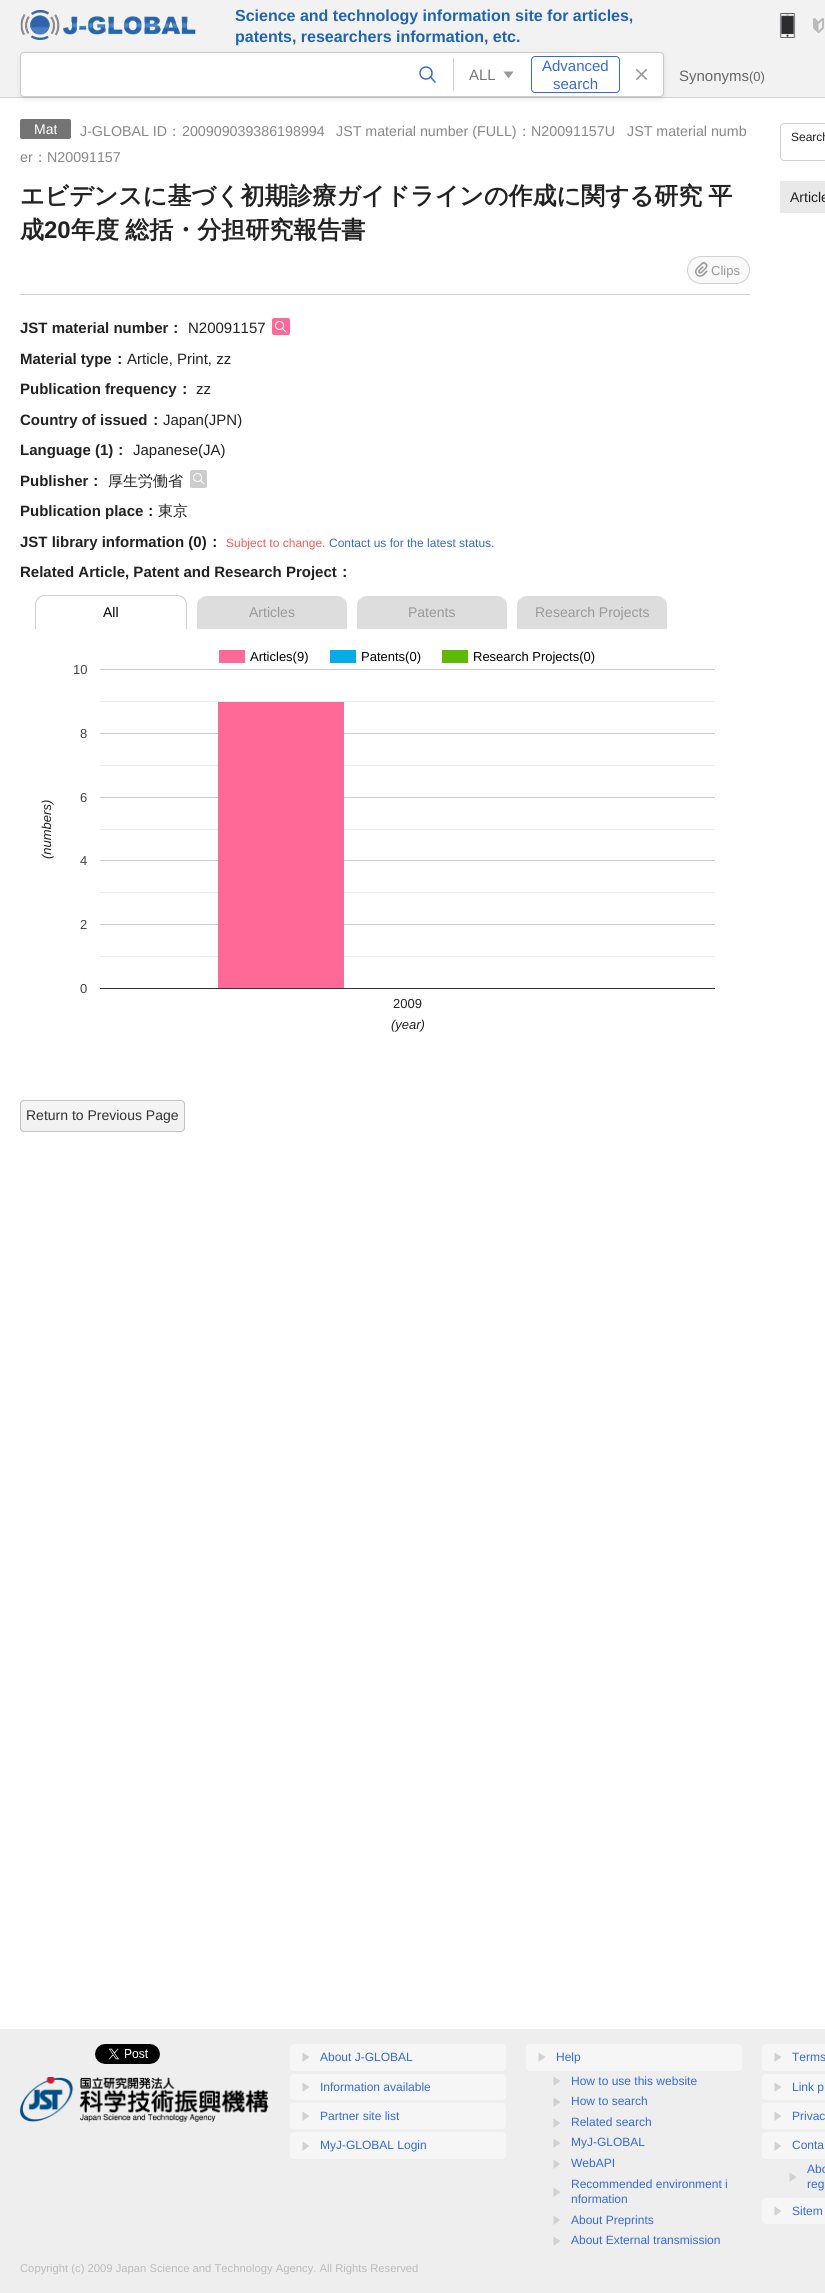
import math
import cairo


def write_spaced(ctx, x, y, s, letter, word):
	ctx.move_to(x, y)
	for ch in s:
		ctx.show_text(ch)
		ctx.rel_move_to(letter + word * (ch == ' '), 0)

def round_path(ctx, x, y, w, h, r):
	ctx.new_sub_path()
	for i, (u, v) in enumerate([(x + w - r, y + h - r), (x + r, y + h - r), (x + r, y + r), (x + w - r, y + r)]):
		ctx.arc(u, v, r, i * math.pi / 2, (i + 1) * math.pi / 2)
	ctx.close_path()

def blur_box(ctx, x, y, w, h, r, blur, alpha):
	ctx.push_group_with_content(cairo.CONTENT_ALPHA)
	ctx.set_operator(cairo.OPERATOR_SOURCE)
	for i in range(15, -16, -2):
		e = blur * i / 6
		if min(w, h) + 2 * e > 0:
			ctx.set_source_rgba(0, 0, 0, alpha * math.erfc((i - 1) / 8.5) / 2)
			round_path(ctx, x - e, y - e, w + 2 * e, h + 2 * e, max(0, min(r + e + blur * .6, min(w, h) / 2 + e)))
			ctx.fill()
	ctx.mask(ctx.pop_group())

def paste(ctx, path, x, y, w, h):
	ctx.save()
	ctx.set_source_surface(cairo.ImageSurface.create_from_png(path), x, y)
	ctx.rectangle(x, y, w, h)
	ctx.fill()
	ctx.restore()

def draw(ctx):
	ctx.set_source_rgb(1, 1, 1)
	ctx.paint()
	ctx.set_source_rgb(0.949, 0.949, 0.949)
	ctx.rectangle(0, 0, 825, 97)
	ctx.fill()
	paste(ctx, 'media/1.png', 20, 10, 176, 30)
	ctx.select_font_face('Liberation Sans', cairo.FONT_SLANT_NORMAL, cairo.FONT_WEIGHT_BOLD)
	ctx.set_font_size(16)
	ctx.set_source_rgb(0.125, 0.392, 0.694)
	ctx.move_to(235, 21)
	ctx.show_text('Science and technology information site for articles,')
	ctx.move_to(235, 42)
	ctx.show_text('patents, researchers information, etc.')
	paste(ctx, 'media/2.png', 779, 13, 17, 25)
	paste(ctx, 'media/3.png', 813, 18, 11, 15)
	ctx.set_source_rgb(0.82, 0.82, 0.82)
	ctx.rectangle(0, 97, 825, 1)
	ctx.fill()
	ctx.set_source_rgb(0, 0, 0)
	blur_box(ctx, 20, 54, 644, 45, 4, 2.5, 0.1)
	ctx.set_source_rgb(1, 1, 1)
	round_path(ctx, 20.5, 52.5, 643, 44, 3.5)
	ctx.fill_preserve()
	ctx.set_source_rgb(0.8, 0.8, 0.8)
	ctx.set_line_width(1)
	ctx.stroke()
	ctx.save()
	round_path(ctx, 21, 53, 642, 43, 3)
	ctx.clip()
	ctx.set_source_rgb(1, 1, 1)
	round_path(ctx, 21, 53, 382, 43, 4)
	ctx.fill()
	ctx.restore()
	ctx.arc(426, 73, 6, 0, 2 * math.pi)
	ctx.set_source_rgb(0.204, 0.416, 0.851)
	ctx.set_line_width(1.5)
	ctx.stroke()
	ctx.new_path()
	ctx.move_to(430.5, 77)
	ctx.line_to(435, 82)
	ctx.set_line_cap(cairo.LINE_CAP_ROUND)
	ctx.set_line_join(cairo.LINE_JOIN_ROUND)
	ctx.stroke()
	ctx.set_source_rgb(0.6, 0.6, 0.6)
	ctx.new_path()
	ctx.move_to(513.5, 71.5)
	ctx.line_to(508.5, 78.5)
	ctx.line_to(503.5, 71.5)
	ctx.close_path()
	ctx.fill()
	ctx.set_source_rgb(0.82, 0.82, 0.82)
	ctx.rectangle(453, 58, 1, 33)
	ctx.fill()
	ctx.select_font_face('Liberation Sans')
	ctx.set_font_size(15)
	ctx.set_source_rgb(0.467, 0.467, 0.467)
	ctx.move_to(469, 80)
	ctx.show_text('ALL')
	round_path(ctx, 531.5, 56.5, 88, 36, 3.5)
	ctx.set_source_rgb(0.204, 0.416, 0.851)
	ctx.set_line_width(1)
	ctx.set_line_cap(cairo.LINE_CAP_BUTT)
	ctx.set_line_join(cairo.LINE_JOIN_MITER)
	ctx.stroke()
	ctx.move_to(542, 71)
	ctx.show_text('Advanced')
	ctx.move_to(553, 89)
	ctx.show_text('search')
	paste(ctx, 'media/4.png', 636, 69, 11, 11)
	ctx.set_source_rgb(0.4, 0.4, 0.4)
	ctx.move_to(679, 81)
	ctx.show_text('Synonyms')
	ctx.set_font_size(13)
	ctx.move_to(749, 81)
	ctx.show_text('(0)')
	ctx.set_source_rgb(0.82, 0.82, 0.82)
	ctx.rectangle(20, 294, 730, 1)
	ctx.fill()
	ctx.set_source_rgb(0.455, 0.455, 0.455)
	round_path(ctx, 20, 119, 51, 20, 2)
	ctx.fill()
	ctx.set_font_size(14)
	ctx.set_source_rgb(1, 1, 1)
	ctx.move_to(34, 134)
	ctx.show_text('Mat')
	ctx.set_font_size(14.25)
	ctx.set_source_rgb(0.533, 0.533, 0.533)
	ctx.move_to(80, 136)
	ctx.show_text('J-GLOBAL ID')
	ctx.select_font_face('WenQuanYi Zen Hei Medium')
	ctx.move_to(167, 136)
	ctx.show_text('：')
	ctx.select_font_face('Liberation Sans')
	ctx.move_to(182, 136)
	ctx.show_text('200909039386198994')
	ctx.move_to(336, 136)
	ctx.show_text('JST material number (FULL)')
	ctx.select_font_face('WenQuanYi Zen Hei Medium')
	ctx.move_to(517, 136)
	ctx.show_text('：')
	ctx.select_font_face('Liberation Sans')
	for x, y, s in [
		(531, 136, 'N20091157U'),
		(627, 136, 'JST material numb'),
		(20, 162, 'er'),
	]:
		ctx.move_to(x, y)
		ctx.show_text(s)
	ctx.select_font_face('WenQuanYi Zen Hei Medium')
	ctx.move_to(33, 162)
	ctx.show_text('：')
	ctx.select_font_face('Liberation Sans')
	ctx.move_to(47, 162)
	ctx.show_text('N20091157')
	ctx.select_font_face('WenQuanYi Zen Hei', cairo.FONT_SLANT_NORMAL, cairo.FONT_WEIGHT_BOLD)
	ctx.set_font_size(24)
	ctx.set_source_rgb(0.133, 0.133, 0.133)
	write_spaced(ctx, 20, 204, 'エビデンスに基づく初期診療ガイドラインの作成に関する研究 平', 0, -1)
	ctx.move_to(20, 238)
	ctx.show_text('成')
	ctx.select_font_face('Liberation Sans', cairo.FONT_SLANT_NORMAL, cairo.FONT_WEIGHT_BOLD)
	ctx.move_to(44, 238)
	ctx.show_text('20')
	ctx.select_font_face('WenQuanYi Zen Hei', cairo.FONT_SLANT_NORMAL, cairo.FONT_WEIGHT_BOLD)
	write_spaced(ctx, 71, 238, '年度 総括・分担研究報告書', 0, -1)
	ctx.set_source_rgb(0.973, 0.973, 0.973)
	round_path(ctx, 687, 256, 63, 28, 14)
	ctx.fill()
	paste(ctx, 'media/5.png', 695, 262, 13, 15)
	round_path(ctx, 687.5, 256.5, 62, 27, 13.5)
	ctx.set_source_rgb(0.82, 0.82, 0.82)
	ctx.stroke()
	ctx.select_font_face('Liberation Sans')
	ctx.set_font_size(13)
	ctx.set_source_rgb(0.6, 0.6, 0.6)
	ctx.move_to(711, 275)
	ctx.show_text('Clips')
	ctx.select_font_face('Liberation Sans', cairo.FONT_SLANT_NORMAL, cairo.FONT_WEIGHT_BOLD)
	ctx.set_font_size(15)
	ctx.set_source_rgb(0.133, 0.133, 0.133)
	ctx.move_to(20, 333)
	ctx.show_text('JST material number')
	ctx.select_font_face('WenQuanYi Zen Hei', cairo.FONT_SLANT_NORMAL, cairo.FONT_WEIGHT_BOLD)
	ctx.move_to(168, 333)
	ctx.show_text('：')
	ctx.select_font_face('Liberation Sans')
	ctx.move_to(188, 333)
	ctx.show_text('N20091157')
	ctx.set_source_rgb(1, 0.412, 0.592)
	round_path(ctx, 272, 318, 18, 17, 2)
	ctx.fill()
	ctx.arc(279.5, 325.5, 4, 0, 2 * math.pi)
	ctx.set_source_rgb(1, 1, 1)
	ctx.stroke()
	ctx.new_path()
	ctx.move_to(282.5, 328.5)
	ctx.line_to(286, 332)
	ctx.set_line_cap(cairo.LINE_CAP_ROUND)
	ctx.set_line_join(cairo.LINE_JOIN_ROUND)
	ctx.stroke()
	ctx.select_font_face('Liberation Sans', cairo.FONT_SLANT_NORMAL, cairo.FONT_WEIGHT_BOLD)
	ctx.set_source_rgb(0.133, 0.133, 0.133)
	ctx.move_to(20, 364)
	ctx.show_text('Material type')
	ctx.select_font_face('WenQuanYi Zen Hei', cairo.FONT_SLANT_NORMAL, cairo.FONT_WEIGHT_BOLD)
	ctx.move_to(112, 364)
	ctx.show_text('：')
	ctx.select_font_face('Liberation Sans')
	ctx.move_to(127, 364)
	ctx.show_text('Article, Print, zz')
	ctx.select_font_face('Liberation Sans', cairo.FONT_SLANT_NORMAL, cairo.FONT_WEIGHT_BOLD)
	ctx.move_to(20, 394)
	ctx.show_text('Publication frequency')
	ctx.select_font_face('WenQuanYi Zen Hei', cairo.FONT_SLANT_NORMAL, cairo.FONT_WEIGHT_BOLD)
	ctx.move_to(177, 394)
	ctx.show_text('：')
	ctx.select_font_face('Liberation Sans')
	ctx.move_to(196, 394)
	ctx.show_text('zz')
	ctx.select_font_face('Liberation Sans', cairo.FONT_SLANT_NORMAL, cairo.FONT_WEIGHT_BOLD)
	ctx.move_to(20, 425)
	ctx.show_text('Country of issued')
	ctx.select_font_face('WenQuanYi Zen Hei', cairo.FONT_SLANT_NORMAL, cairo.FONT_WEIGHT_BOLD)
	ctx.move_to(148, 425)
	ctx.show_text('：')
	ctx.select_font_face('Liberation Sans')
	ctx.move_to(163, 425)
	ctx.show_text('Japan(JPN)')
	ctx.select_font_face('Liberation Sans', cairo.FONT_SLANT_NORMAL, cairo.FONT_WEIGHT_BOLD)
	ctx.move_to(20, 455)
	ctx.show_text('Language (1)')
	ctx.select_font_face('WenQuanYi Zen Hei', cairo.FONT_SLANT_NORMAL, cairo.FONT_WEIGHT_BOLD)
	ctx.move_to(113, 455)
	ctx.show_text('：')
	ctx.select_font_face('Liberation Sans')
	ctx.move_to(133, 455)
	ctx.show_text('Japanese(JA)')
	ctx.select_font_face('Liberation Sans', cairo.FONT_SLANT_NORMAL, cairo.FONT_WEIGHT_BOLD)
	ctx.move_to(20, 486)
	ctx.show_text('Publisher')
	ctx.select_font_face('WenQuanYi Zen Hei', cairo.FONT_SLANT_NORMAL, cairo.FONT_WEIGHT_BOLD)
	ctx.move_to(88, 486)
	ctx.show_text('：')
	ctx.select_font_face('WenQuanYi Zen Hei Medium')
	ctx.move_to(108, 486)
	ctx.show_text('厚生労働省')
	ctx.set_source_rgb(0.8, 0.8, 0.8)
	round_path(ctx, 190, 470, 17, 18, 2)
	ctx.fill()
	ctx.arc(197.5, 477.5, 4, 0, 2 * math.pi)
	ctx.set_source_rgb(1, 1, 1)
	ctx.set_line_cap(cairo.LINE_CAP_BUTT)
	ctx.set_line_join(cairo.LINE_JOIN_MITER)
	ctx.stroke()
	ctx.new_path()
	ctx.move_to(200.5, 480.5)
	ctx.line_to(204, 484)
	ctx.set_line_cap(cairo.LINE_CAP_ROUND)
	ctx.set_line_join(cairo.LINE_JOIN_ROUND)
	ctx.stroke()
	ctx.select_font_face('Liberation Sans', cairo.FONT_SLANT_NORMAL, cairo.FONT_WEIGHT_BOLD)
	ctx.set_source_rgb(0.133, 0.133, 0.133)
	ctx.move_to(20, 516)
	ctx.show_text('Publication place')
	ctx.select_font_face('WenQuanYi Zen Hei', cairo.FONT_SLANT_NORMAL, cairo.FONT_WEIGHT_BOLD)
	ctx.move_to(143, 516)
	ctx.show_text('：')
	ctx.select_font_face('WenQuanYi Zen Hei Medium')
	ctx.move_to(158, 516)
	ctx.show_text('東京')
	ctx.select_font_face('Liberation Sans', cairo.FONT_SLANT_NORMAL, cairo.FONT_WEIGHT_BOLD)
	ctx.move_to(20, 547)
	ctx.show_text('JST library information (0)')
	ctx.select_font_face('WenQuanYi Zen Hei', cairo.FONT_SLANT_NORMAL, cairo.FONT_WEIGHT_BOLD)
	ctx.move_to(207, 547)
	ctx.show_text('：')
	ctx.select_font_face('Liberation Sans')
	ctx.set_font_size(12)
	ctx.set_source_rgb(1, 0.345, 0.345)
	ctx.move_to(226, 547)
	ctx.show_text('Subject to change.')
	ctx.set_source_rgb(0.204, 0.416, 0.851)
	ctx.move_to(329, 547)
	ctx.show_text('Contact us for the latest status.')
	ctx.select_font_face('Liberation Sans', cairo.FONT_SLANT_NORMAL, cairo.FONT_WEIGHT_BOLD)
	ctx.set_font_size(15)
	ctx.set_source_rgb(0.133, 0.133, 0.133)
	ctx.move_to(20, 577)
	ctx.show_text('Related Article, Patent and Research Project')
	ctx.select_font_face('WenQuanYi Zen Hei', cairo.FONT_SLANT_NORMAL, cairo.FONT_WEIGHT_BOLD)
	ctx.move_to(337, 577)
	ctx.show_text('：')
	ctx.set_source_rgb(0.82, 0.82, 0.82)
	ctx.set_fill_rule(cairo.FILL_RULE_EVEN_ODD)
	ctx.new_path()
	ctx.move_to(45, 595)
	ctx.line_to(177, 595)
	ctx.curve_to(183, 595, 187, 599, 187, 605)
	ctx.line_to(187, 629)
	ctx.line_to(35, 629)
	ctx.line_to(35, 605)
	ctx.curve_to(35, 599, 39, 595, 45, 595)
	ctx.close_path()
	ctx.move_to(45, 596)
	ctx.line_to(177, 596)
	ctx.curve_to(182, 596, 186, 600, 186, 605)
	ctx.line_to(186, 629)
	ctx.line_to(36, 629)
	ctx.line_to(36, 605)
	ctx.curve_to(36, 600, 40, 596, 45, 596)
	ctx.close_path()
	ctx.fill()
	ctx.select_font_face('Liberation Sans')
	ctx.set_font_size(14)
	ctx.set_source_rgb(0, 0, 0)
	ctx.move_to(103, 617)
	ctx.show_text('All')
	ctx.set_source_rgb(0.867, 0.867, 0.867)
	ctx.new_path()
	ctx.move_to(207, 596)
	ctx.line_to(337, 596)
	ctx.curve_to(342.5, 596, 347, 600.5, 347, 606)
	ctx.line_to(347, 629)
	ctx.line_to(197, 629)
	ctx.line_to(197, 606)
	ctx.curve_to(197, 600.5, 201.5, 596, 207, 596)
	ctx.close_path()
	ctx.fill()
	ctx.set_source_rgb(0.6, 0.6, 0.6)
	ctx.move_to(249, 617)
	ctx.show_text('Articles')
	ctx.set_source_rgb(0.867, 0.867, 0.867)
	ctx.new_path()
	ctx.move_to(367, 596)
	ctx.line_to(497, 596)
	ctx.curve_to(502.5, 596, 507, 600.5, 507, 606)
	ctx.line_to(507, 629)
	ctx.line_to(357, 629)
	ctx.line_to(357, 606)
	ctx.curve_to(357, 600.5, 361.5, 596, 367, 596)
	ctx.close_path()
	ctx.fill()
	ctx.set_source_rgb(0.6, 0.6, 0.6)
	ctx.move_to(408, 617)
	ctx.show_text('Patents')
	ctx.set_source_rgb(0.867, 0.867, 0.867)
	ctx.new_path()
	ctx.move_to(527, 596)
	ctx.line_to(657, 596)
	ctx.curve_to(662.5, 596, 667, 600.5, 667, 606)
	ctx.line_to(667, 629)
	ctx.line_to(517, 629)
	ctx.line_to(517, 606)
	ctx.curve_to(517, 600.5, 521.5, 596, 527, 596)
	ctx.close_path()
	ctx.fill()
	ctx.set_source_rgb(0.6, 0.6, 0.6)
	ctx.move_to(535, 617)
	ctx.show_text('Research Projects')
	ctx.set_font_size(13)
	ctx.set_source_rgb(0, 0, 0)
	ctx.move_to(250, 661)
	ctx.show_text('Articles(9)')
	ctx.set_source_rgb(1, 0.412, 0.592)
	ctx.rectangle(219, 650, 26, 13)
	ctx.fill()
	ctx.set_source_rgb(0, 0, 0)
	ctx.move_to(361, 661)
	ctx.show_text('Patents(0)')
	ctx.set_source_rgb(0.024, 0.671, 0.91)
	ctx.rectangle(330, 650, 26, 13)
	ctx.fill()
	ctx.set_source_rgb(0, 0, 0)
	ctx.move_to(473, 661)
	ctx.show_text('Research Projects(0)')
	ctx.set_source_rgb(0.376, 0.725, 0.035)
	ctx.rectangle(442, 650, 26, 13)
	ctx.fill()
	ctx.set_source_rgb(0.267, 0.267, 0.267)
	ctx.move_to(73, 674)
	ctx.show_text('10')
	ctx.set_source_rgb(0.8, 0.8, 0.8)
	ctx.rectangle(100, 669, 615, 1)
	ctx.fill()
	ctx.set_source_rgb(0.267, 0.267, 0.267)
	ctx.move_to(80, 738)
	ctx.show_text('8')
	ctx.set_source_rgb(0.8, 0.8, 0.8)
	ctx.rectangle(100, 733, 615, 1)
	ctx.fill()
	ctx.set_source_rgb(0.922, 0.922, 0.922)
	ctx.rectangle(100, 701, 615, 1)
	ctx.fill()
	ctx.set_source_rgb(0.267, 0.267, 0.267)
	ctx.move_to(80, 802)
	ctx.show_text('6')
	ctx.set_source_rgb(0.8, 0.8, 0.8)
	ctx.rectangle(100, 797, 615, 1)
	ctx.fill()
	ctx.set_source_rgb(0.922, 0.922, 0.922)
	ctx.rectangle(100, 765, 615, 1)
	ctx.fill()
	ctx.select_font_face('Liberation Sans', cairo.FONT_SLANT_ITALIC)
	ctx.set_source_rgb(0.133, 0.133, 0.133)
	ctx.save()
	ctx.translate(51, 859)
	ctx.rotate(-90 * math.pi / 180)
	ctx.move_to(0, 0)
	ctx.show_text('(numbers)')
	ctx.restore()
	ctx.set_source_rgb(0.922, 0.922, 0.922)
	ctx.rectangle(100, 829, 615, 1)
	ctx.fill()
	ctx.select_font_face('Liberation Sans')
	ctx.set_source_rgb(0.267, 0.267, 0.267)
	ctx.move_to(80, 865)
	ctx.show_text('4')
	ctx.set_source_rgb(0.8, 0.8, 0.8)
	ctx.rectangle(100, 860, 615, 1)
	ctx.rectangle(100, 924, 615, 1)
	ctx.fill()
	ctx.set_source_rgb(0.922, 0.922, 0.922)
	ctx.rectangle(100, 892, 615, 1)
	ctx.rectangle(100, 956, 615, 1)
	ctx.fill()
	ctx.set_source_rgb(1, 0.412, 0.592)
	ctx.rectangle(218, 702, 126, 286)
	ctx.fill()
	ctx.set_source_rgb(0.267, 0.267, 0.267)
	ctx.move_to(80, 929)
	ctx.show_text('2')
	ctx.move_to(80, 993)
	ctx.show_text('0')
	ctx.set_source_rgb(0.2, 0.2, 0.2)
	ctx.rectangle(100, 988, 615, 1)
	ctx.fill()
	ctx.set_source_rgb(0.133, 0.133, 0.133)
	ctx.move_to(393, 1008)
	ctx.show_text('2009')
	ctx.select_font_face('Liberation Sans', cairo.FONT_SLANT_ITALIC)
	ctx.move_to(391, 1029)
	ctx.show_text('(year)')
	ctx.save()
	ctx.set_fill_rule(cairo.FILL_RULE_WINDING)
	round_path(ctx, 20, 1100, 165, 32, 4)
	ctx.clip()
	gradient = cairo.LinearGradient(103, 1101, 103, 1131)
	gradient.add_color_stop_rgba(0, 0.961, 0.961, 0.961, 1)
	gradient.add_color_stop_rgba(1, 0.945, 0.945, 0.945, 1)
	ctx.set_source(gradient)
	ctx.rectangle(20, 1101, 165, 30)
	ctx.fill()
	ctx.restore()
	round_path(ctx, 20.5, 1100.5, 164, 31, 3.5)
	ctx.set_source_rgb(0.761, 0.761, 0.761)
	ctx.set_line_cap(cairo.LINE_CAP_BUTT)
	ctx.set_line_join(cairo.LINE_JOIN_MITER)
	ctx.stroke()
	ctx.select_font_face('Liberation Sans')
	ctx.set_font_size(14)
	ctx.set_source_rgb(0.2, 0.2, 0.2)
	ctx.move_to(26, 1120)
	ctx.show_text('Return to Previous Page')
	round_path(ctx, 780.5, 123.5, 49, 37, 3.5)
	ctx.set_source_rgb(0.82, 0.82, 0.82)
	ctx.stroke()
	ctx.set_font_size(12)
	ctx.set_source_rgb(0.133, 0.133, 0.133)
	ctx.move_to(791, 141)
	ctx.show_text('Search')
	ctx.set_source_rgb(0.914, 0.914, 0.914)
	ctx.rectangle(780, 181, 45, 32)
	ctx.fill()
	ctx.set_font_size(14)
	ctx.set_source_rgb(0.133, 0.133, 0.133)
	ctx.move_to(790, 202)
	ctx.show_text('Article')
	ctx.set_source_rgb(0.933, 0.933, 0.933)
	ctx.rectangle(0, 2029, 825, 264)
	ctx.fill()
	paste(ctx, 'media/6.png', 95, 2044, 65, 20)
	paste(ctx, 'media/7.png', 20, 2077, 249, 45)
	ctx.set_source_rgb(0.961, 0.961, 0.961)
	round_path(ctx, 290, 2044, 216, 27, 4)
	ctx.fill()
	ctx.set_source_rgb(0.82, 0.82, 0.82)
	ctx.set_fill_rule(cairo.FILL_RULE_WINDING)
	ctx.new_path()
	ctx.move_to(302.5, 2052.5)
	ctx.line_to(309.5, 2057)
	ctx.line_to(302.5, 2062)
	ctx.close_path()
	ctx.fill()
	ctx.set_font_size(12)
	ctx.set_source_rgb(0.204, 0.416, 0.851)
	ctx.move_to(320, 2061)
	ctx.show_text('About J-GLOBAL')
	ctx.set_source_rgb(0.961, 0.961, 0.961)
	round_path(ctx, 290, 2074, 216, 26, 4)
	ctx.fill()
	ctx.set_source_rgb(0.82, 0.82, 0.82)
	ctx.new_path()
	ctx.move_to(302.5, 2082.5)
	ctx.line_to(309.5, 2087)
	ctx.line_to(302.5, 2092)
	ctx.close_path()
	ctx.fill()
	ctx.set_source_rgb(0.204, 0.416, 0.851)
	ctx.move_to(320, 2091)
	ctx.show_text('Information available')
	ctx.set_source_rgb(0.961, 0.961, 0.961)
	round_path(ctx, 290, 2103, 216, 26, 4)
	ctx.fill()
	ctx.set_source_rgb(0.82, 0.82, 0.82)
	ctx.new_path()
	ctx.move_to(302.5, 2111.5)
	ctx.line_to(309.5, 2116)
	ctx.line_to(302.5, 2121)
	ctx.close_path()
	ctx.fill()
	ctx.set_source_rgb(0.204, 0.416, 0.851)
	ctx.move_to(320, 2120)
	ctx.show_text('Partner site list')
	ctx.set_source_rgb(0.961, 0.961, 0.961)
	round_path(ctx, 290, 2132, 216, 27, 4)
	ctx.fill()
	ctx.set_source_rgb(0.82, 0.82, 0.82)
	ctx.new_path()
	ctx.move_to(302.5, 2141.5)
	ctx.line_to(309.5, 2146)
	ctx.line_to(302.5, 2151)
	ctx.close_path()
	ctx.fill()
	ctx.set_source_rgb(0.204, 0.416, 0.851)
	ctx.move_to(320, 2149)
	ctx.show_text('MyJ-GLOBAL Login')
	ctx.set_source_rgb(0.961, 0.961, 0.961)
	round_path(ctx, 526, 2044, 216, 27, 4)
	ctx.fill()
	ctx.set_source_rgb(0.82, 0.82, 0.82)
	ctx.new_path()
	ctx.move_to(538.5, 2052.5)
	ctx.line_to(545.5, 2057)
	ctx.line_to(538.5, 2062)
	ctx.close_path()
	ctx.move_to(553.5, 2076.5)
	ctx.line_to(560.5, 2081)
	ctx.line_to(553.5, 2086)
	ctx.close_path()
	ctx.move_to(553.5, 2097.5)
	ctx.line_to(560.5, 2102)
	ctx.line_to(553.5, 2107)
	ctx.close_path()
	ctx.fill()
	ctx.set_source_rgb(0.204, 0.416, 0.851)
	for x, y, s in [
		(556, 2061, 'Help'),
		(571, 2085, 'How to use this website'),
		(571, 2105, 'How to search'),
	]:
		ctx.move_to(x, y)
		ctx.show_text(s)
	ctx.set_source_rgb(0.82, 0.82, 0.82)
	ctx.new_path()
	ctx.move_to(553.5, 2118.5)
	ctx.line_to(560.5, 2123)
	ctx.line_to(553.5, 2128)
	ctx.close_path()
	ctx.move_to(553.5, 2138.5)
	ctx.line_to(560.5, 2143)
	ctx.line_to(553.5, 2148)
	ctx.close_path()
	ctx.move_to(553.5, 2159.5)
	ctx.line_to(560.5, 2164)
	ctx.line_to(553.5, 2169)
	ctx.close_path()
	ctx.fill()
	ctx.set_source_rgb(0.204, 0.416, 0.851)
	for x, y, s in [
		(571, 2126, 'Related search'),
		(571, 2146, 'MyJ-GLOBAL'),
		(571, 2167, 'WebAPI'),
	]:
		ctx.move_to(x, y)
		ctx.show_text(s)
	ctx.set_source_rgb(0.82, 0.82, 0.82)
	ctx.new_path()
	ctx.move_to(553.5, 2187.5)
	ctx.line_to(560.5, 2192)
	ctx.line_to(553.5, 2197)
	ctx.close_path()
	ctx.move_to(553.5, 2215.5)
	ctx.line_to(560.5, 2220)
	ctx.line_to(553.5, 2225)
	ctx.close_path()
	ctx.move_to(553.5, 2236.5)
	ctx.line_to(560.5, 2241)
	ctx.line_to(553.5, 2246)
	ctx.close_path()
	ctx.fill()
	ctx.set_source_rgb(0.204, 0.416, 0.851)
	for x, y, s in [
		(571, 2188, 'Recommended environment i'),
		(571, 2203, 'nformation'),
		(571, 2224, 'About Preprints'),
		(571, 2244, 'About External transmission'),
	]:
		ctx.move_to(x, y)
		ctx.show_text(s)
	ctx.set_source_rgb(0.961, 0.961, 0.961)
	round_path(ctx, 762, 2044, 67, 27, 4)
	ctx.fill()
	ctx.set_source_rgb(0.82, 0.82, 0.82)
	ctx.new_path()
	ctx.move_to(774.5, 2052.5)
	ctx.line_to(781.5, 2057)
	ctx.line_to(774.5, 2062)
	ctx.close_path()
	ctx.fill()
	ctx.set_source_rgb(0.204, 0.416, 0.851)
	ctx.move_to(792, 2061)
	ctx.show_text('Terms')
	ctx.set_source_rgb(0.961, 0.961, 0.961)
	round_path(ctx, 762, 2074, 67, 26, 4)
	ctx.fill()
	ctx.set_source_rgb(0.82, 0.82, 0.82)
	ctx.new_path()
	ctx.move_to(774.5, 2082.5)
	ctx.line_to(781.5, 2087)
	ctx.line_to(774.5, 2092)
	ctx.close_path()
	ctx.fill()
	ctx.set_source_rgb(0.204, 0.416, 0.851)
	ctx.move_to(792, 2091)
	ctx.show_text('Link p')
	ctx.set_source_rgb(0.961, 0.961, 0.961)
	round_path(ctx, 762, 2103, 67, 26, 4)
	ctx.fill()
	ctx.set_source_rgb(0.82, 0.82, 0.82)
	ctx.new_path()
	ctx.move_to(774.5, 2111.5)
	ctx.line_to(781.5, 2116)
	ctx.line_to(774.5, 2121)
	ctx.close_path()
	ctx.fill()
	ctx.set_source_rgb(0.204, 0.416, 0.851)
	ctx.move_to(792, 2120)
	ctx.show_text('Privac')
	ctx.set_source_rgb(0.961, 0.961, 0.961)
	round_path(ctx, 762, 2132, 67, 27, 4)
	ctx.fill()
	ctx.set_source_rgb(0.82, 0.82, 0.82)
	ctx.new_path()
	ctx.move_to(774.5, 2141.5)
	ctx.line_to(781.5, 2146)
	ctx.line_to(774.5, 2151)
	ctx.close_path()
	ctx.move_to(789.5, 2172.5)
	ctx.line_to(796.5, 2177)
	ctx.line_to(789.5, 2182)
	ctx.close_path()
	ctx.fill()
	ctx.set_source_rgb(0.204, 0.416, 0.851)
	for x, y, s in [
		(792, 2149, 'Conta'),
		(807, 2173, 'Abo'),
		(807, 2188, 'reg'),
	]:
		ctx.move_to(x, y)
		ctx.show_text(s)
	ctx.set_source_rgb(0.961, 0.961, 0.961)
	round_path(ctx, 762, 2198, 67, 26, 4)
	ctx.fill()
	ctx.set_source_rgb(0.82, 0.82, 0.82)
	ctx.new_path()
	ctx.move_to(774.5, 2206.5)
	ctx.line_to(781.5, 2211)
	ctx.line_to(774.5, 2216)
	ctx.close_path()
	ctx.fill()
	ctx.set_source_rgb(0.204, 0.416, 0.851)
	ctx.move_to(792, 2215)
	ctx.show_text('Sitem')
	ctx.set_font_size(11.25)
	ctx.set_source_rgb(0.733, 0.733, 0.733)
	ctx.move_to(20, 2272)
	ctx.show_text('Copyright (c) 2009 Japan Science and Technology Agency. All Rights Reserved')


surface = cairo.ImageSurface(cairo.FORMAT_RGB24, 825, 2293)
ctx = cairo.Context(surface)
options = cairo.FontOptions()
options.set_hint_metrics(cairo.HINT_METRICS_OFF)
options.set_hint_style(cairo.HINT_STYLE_NONE)
ctx.set_font_options(options)
ctx.set_miter_limit(4)
draw(ctx)
surface.write_to_png('image.png')
